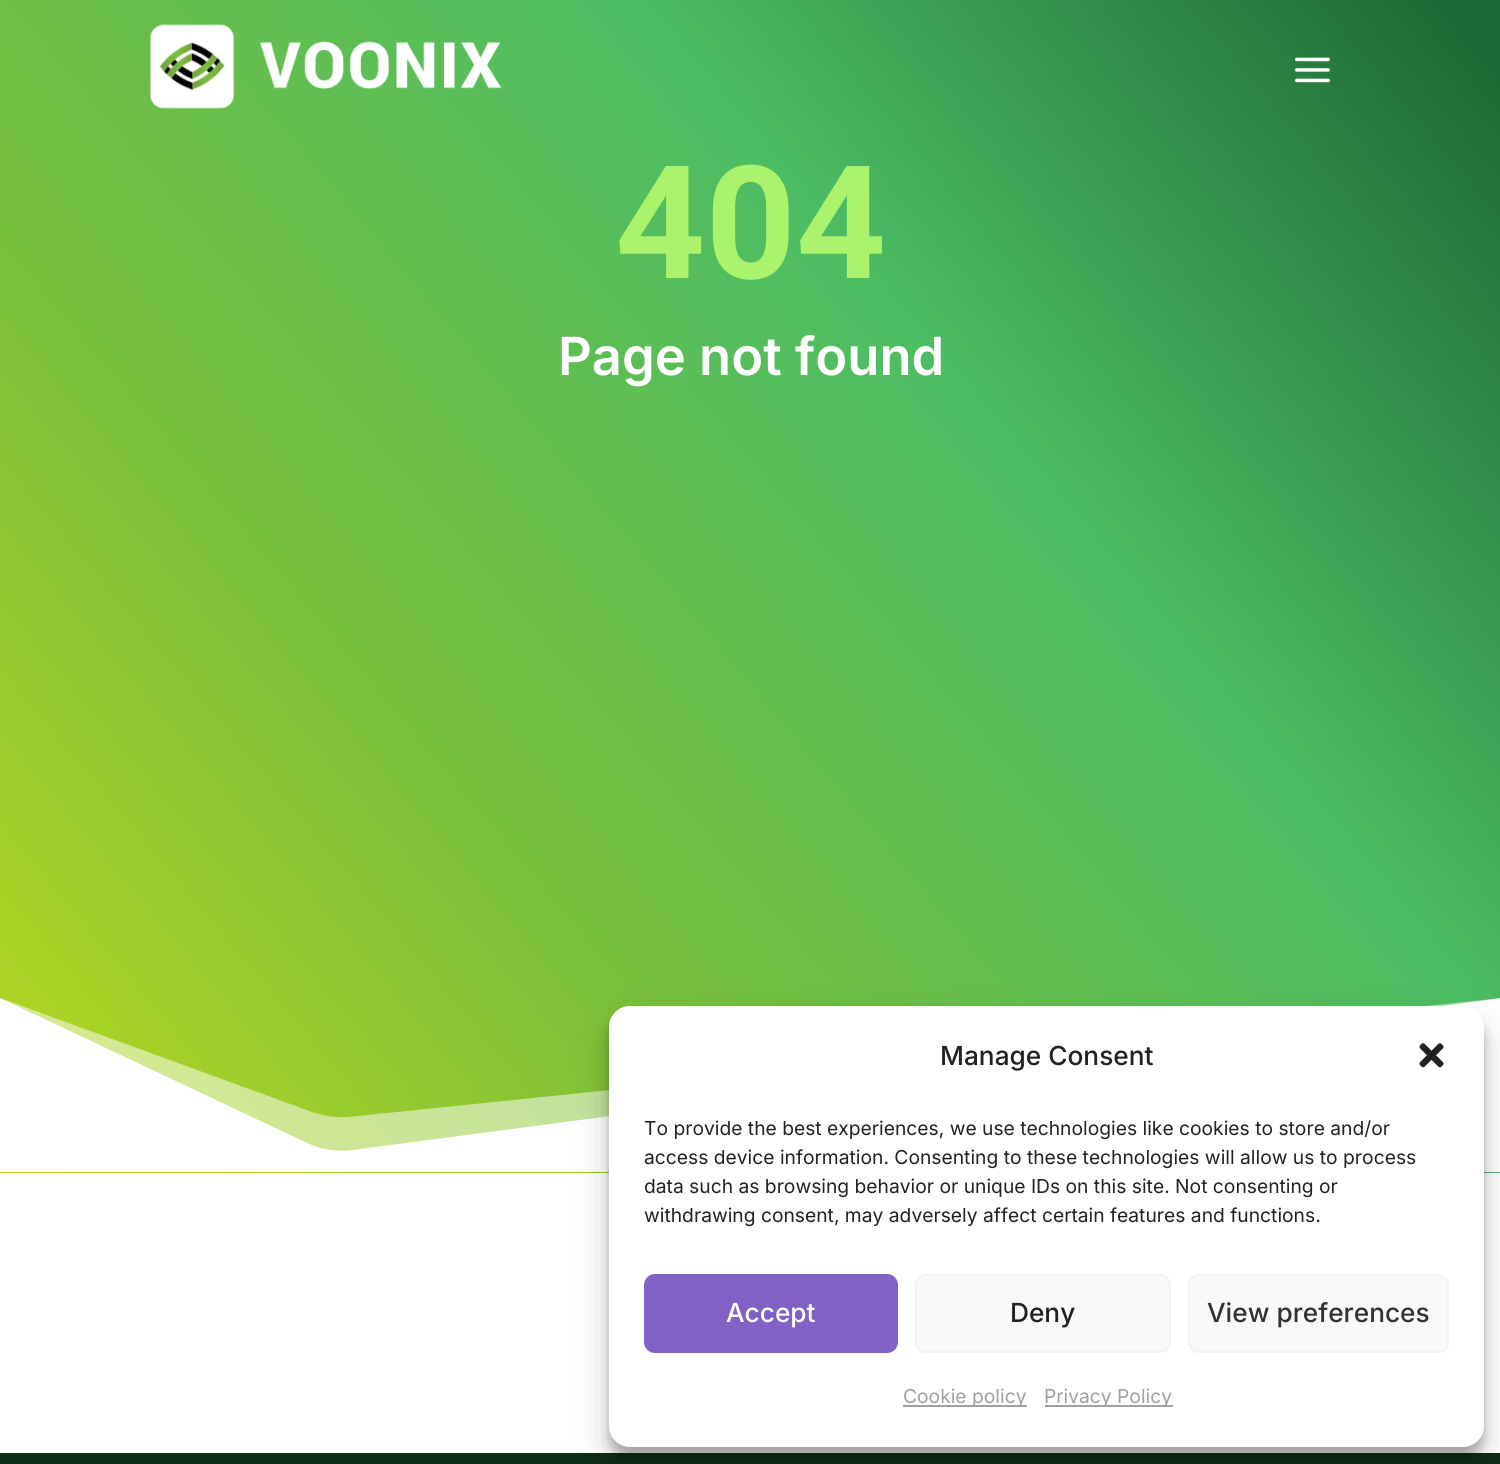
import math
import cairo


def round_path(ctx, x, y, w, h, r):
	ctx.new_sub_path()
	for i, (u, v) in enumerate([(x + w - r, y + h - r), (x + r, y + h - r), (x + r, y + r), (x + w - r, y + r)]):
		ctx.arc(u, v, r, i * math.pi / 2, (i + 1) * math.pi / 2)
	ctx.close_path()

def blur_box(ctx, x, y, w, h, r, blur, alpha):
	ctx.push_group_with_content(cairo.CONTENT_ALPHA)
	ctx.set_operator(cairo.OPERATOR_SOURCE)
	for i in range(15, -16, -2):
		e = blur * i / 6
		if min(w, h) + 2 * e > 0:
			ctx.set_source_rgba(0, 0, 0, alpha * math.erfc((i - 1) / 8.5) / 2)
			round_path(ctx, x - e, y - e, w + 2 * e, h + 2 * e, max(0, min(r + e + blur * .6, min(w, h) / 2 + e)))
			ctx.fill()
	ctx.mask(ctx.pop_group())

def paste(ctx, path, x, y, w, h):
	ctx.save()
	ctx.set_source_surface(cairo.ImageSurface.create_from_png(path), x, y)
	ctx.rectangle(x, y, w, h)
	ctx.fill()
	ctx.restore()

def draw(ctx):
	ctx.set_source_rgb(1, 1, 1)
	ctx.paint()
	gradient = cairo.LinearGradient(22, 1198, 1480, -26)
	gradient.add_color_stop_rgba(0, 0.725, 0.851, 0.118, 1)
	gradient.add_color_stop_rgba(0.32, 0.471, 0.749, 0.235, 1)
	gradient.add_color_stop_rgba(0.65, 0.298, 0.741, 0.392, 1)
	gradient.add_color_stop_rgba(0.97, 0.122, 0.416, 0.204, 1)
	ctx.set_source(gradient)
	ctx.rectangle(0, 0, 1500, 1173)
	ctx.fill()
	paste(ctx, 'media/1.png', 150, 24, 352, 85)
	paste(ctx, 'media/2.png', 1295, 57, 35, 26)
	ctx.select_font_face('Yantramanav', cairo.FONT_SLANT_NORMAL, cairo.FONT_WEIGHT_BOLD)
	ctx.set_font_size(175)
	ctx.set_source_rgb(0.671, 0.949, 0.427)
	ctx.move_to(615, 278)
	ctx.show_text('404')
	ctx.select_font_face('Inter SemiBold')
	ctx.set_font_size(52.5)
	ctx.set_source_rgb(1, 1, 1)
	ctx.move_to(558, 375)
	ctx.show_text('Page not found')
	ctx.set_source_rgba(1, 1, 1, 0.5)
	ctx.new_path()
	ctx.move_to(0, 998)
	ctx.line_to(312, 1112)
	ctx.curve_to(324, 1116, 336, 1118, 348, 1117)
	ctx.line_to(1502, 998)
	ctx.line_to(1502, 1172)
	ctx.line_to(0, 1172)
	ctx.close_path()
	ctx.fill()
	ctx.set_source_rgb(1, 1, 1)
	ctx.new_path()
	ctx.move_to(0, 998)
	ctx.line_to(307, 1143)
	ctx.curve_to(322, 1150, 338, 1152, 353, 1150)
	ctx.line_to(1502, 998)
	ctx.line_to(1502, 1172)
	ctx.line_to(0, 1172)
	ctx.close_path()
	ctx.fill()
	ctx.set_source_rgb(0.051, 0.18, 0.09)
	ctx.rectangle(0, 1453, 1500, 11)
	ctx.fill()
	ctx.set_source_rgb(0, 0, 0)
	blur_box(ctx, 609, 1017, 875, 441, 21, 5, 0.23)
	blur_box(ctx, 609, 1024, 875, 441, 21, 17.5, 0.19)
	ctx.set_source_rgb(1, 1, 1)
	round_path(ctx, 609, 1006, 875, 441, 21)
	ctx.fill()
	ctx.select_font_face('Inter Medium')
	ctx.set_font_size(26.25)
	ctx.set_source_rgb(0.133, 0.133, 0.133)
	ctx.move_to(940, 1065)
	ctx.show_text('Manage Consent')
	paste(ctx, 'media/3.png', 1419, 1043, 25, 25)
	ctx.select_font_face('Inter')
	ctx.set_font_size(19.25)
	for x, y, s in [
		(644, 1135, 'To provide the best experiences, we use technologies like cookies to store and/or'),
		(644, 1164, 'access device information. Consenting to these technologies will allow us to process'),
		(644, 1193, 'data such as browsing behavior or unique IDs on this site. Not consenting or'),
		(644, 1222, 'withdrawing consent, may adversely affect certain features and functions.'),
	]:
		ctx.move_to(x, y)
		ctx.show_text(s)
	ctx.set_source_rgb(0.51, 0.38, 0.78)
	round_path(ctx, 645, 1275, 252, 77, 10)
	ctx.fill_preserve()
	ctx.stroke()
	ctx.select_font_face('Inter Medium')
	ctx.set_font_size(26.25)
	ctx.set_source_rgb(1, 1, 1)
	ctx.move_to(726, 1322)
	ctx.show_text('Accept')
	ctx.set_source_rgb(0.976, 0.976, 0.976)
	round_path(ctx, 916, 1275, 254, 77, 10)
	ctx.fill_preserve()
	ctx.set_source_rgb(0.949, 0.949, 0.949)
	ctx.stroke()
	ctx.set_source_rgb(0.133, 0.133, 0.133)
	ctx.move_to(1010, 1322)
	ctx.show_text('Deny')
	ctx.set_source_rgb(0.976, 0.976, 0.976)
	round_path(ctx, 1189, 1275, 259, 77, 10)
	ctx.fill_preserve()
	ctx.set_source_rgb(0.949, 0.949, 0.949)
	ctx.stroke()
	ctx.set_source_rgb(0.2, 0.2, 0.2)
	ctx.move_to(1207, 1322)
	ctx.show_text('View preferences')
	ctx.set_source_rgb(0.627, 0.627, 0.627)
	ctx.rectangle(903, 1405, 124, 2)
	ctx.fill()
	ctx.select_font_face('Inter')
	ctx.set_font_size(19.25)
	ctx.move_to(903, 1403)
	ctx.show_text('Cookie policy')
	ctx.rectangle(1045, 1405, 128, 2)
	ctx.fill()
	ctx.move_to(1044, 1403)
	ctx.show_text('Privacy Policy')


surface = cairo.ImageSurface(cairo.FORMAT_RGB24, 1500, 1464)
ctx = cairo.Context(surface)
options = cairo.FontOptions()
options.set_hint_metrics(cairo.HINT_METRICS_OFF)
options.set_hint_style(cairo.HINT_STYLE_NONE)
ctx.set_font_options(options)
ctx.set_miter_limit(4)
draw(ctx)
surface.write_to_png('image.png')
